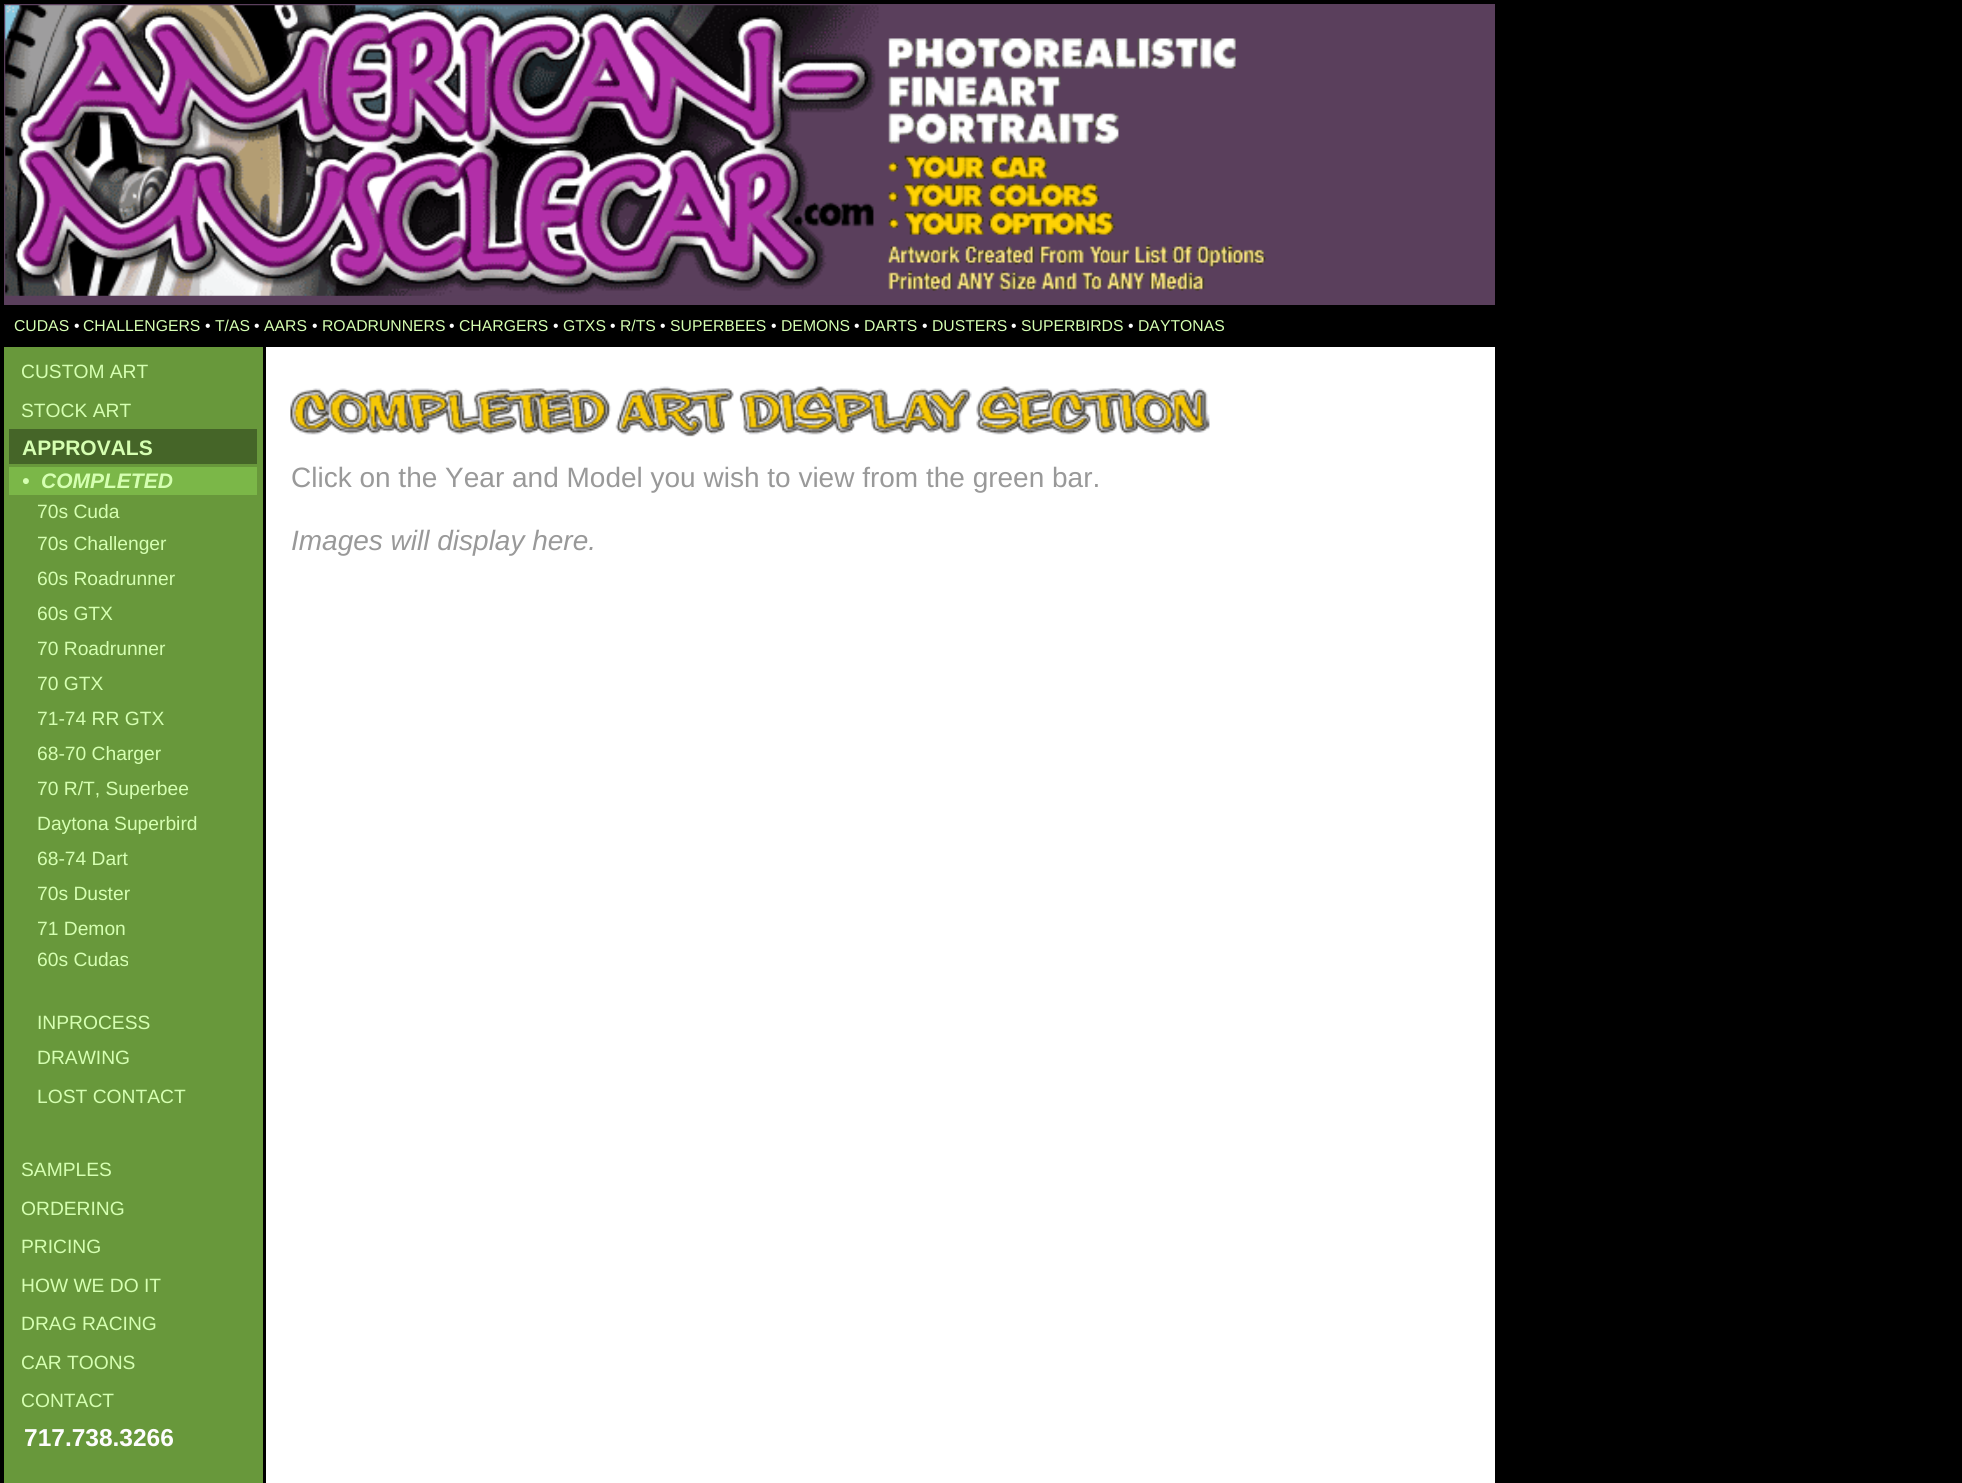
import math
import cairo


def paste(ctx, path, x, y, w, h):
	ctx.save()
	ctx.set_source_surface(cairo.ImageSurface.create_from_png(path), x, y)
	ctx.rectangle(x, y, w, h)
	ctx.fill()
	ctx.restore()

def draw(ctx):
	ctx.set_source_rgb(0, 0, 0)
	ctx.paint()
	ctx.set_source_rgb(0.353, 0.247, 0.361)
	ctx.rectangle(4, 4, 1491, 301)
	ctx.fill()
	paste(ctx, 'media/1.png', 5, 5, 874, 291)
	paste(ctx, 'media/2.png', 887, 38, 379, 253)
	ctx.select_font_face('Liberation Sans')
	ctx.set_font_size(15.75)
	ctx.set_source_rgb(0.835, 1, 0.694)
	ctx.move_to(14, 331)
	ctx.show_text('CUDAS')
	ctx.set_source_rgb(0.992, 0.992, 0.992)
	ctx.move_to(74, 331)
	ctx.show_text('•')
	ctx.set_source_rgb(0.835, 1, 0.694)
	ctx.move_to(83, 331)
	ctx.show_text('CHALLENGERS')
	ctx.set_source_rgb(0.992, 0.992, 0.992)
	ctx.move_to(205, 331)
	ctx.show_text('•')
	ctx.set_source_rgb(0.835, 1, 0.694)
	ctx.move_to(215, 331)
	ctx.show_text('T/AS')
	ctx.set_source_rgb(0.992, 0.992, 0.992)
	ctx.move_to(254, 331)
	ctx.show_text('•')
	ctx.set_source_rgb(0.835, 1, 0.694)
	ctx.move_to(264, 331)
	ctx.show_text('AARS')
	ctx.set_source_rgb(0.992, 0.992, 0.992)
	ctx.move_to(312, 331)
	ctx.show_text('•')
	ctx.set_source_rgb(0.835, 1, 0.694)
	ctx.move_to(322, 331)
	ctx.show_text('ROADRUNNERS')
	ctx.set_source_rgb(0.992, 0.992, 0.992)
	ctx.move_to(449, 331)
	ctx.show_text('•')
	ctx.set_source_rgb(0.835, 1, 0.694)
	ctx.move_to(459, 331)
	ctx.show_text('CHARGERS')
	ctx.set_source_rgb(0.992, 0.992, 0.992)
	ctx.move_to(553, 331)
	ctx.show_text('•')
	ctx.set_source_rgb(0.835, 1, 0.694)
	ctx.move_to(563, 331)
	ctx.show_text('GTXS')
	ctx.set_source_rgb(0.992, 0.992, 0.992)
	ctx.move_to(610, 331)
	ctx.show_text('•')
	ctx.set_source_rgb(0.835, 1, 0.694)
	ctx.move_to(620, 331)
	ctx.show_text('R/TS')
	ctx.set_source_rgb(0.992, 0.992, 0.992)
	ctx.move_to(660, 331)
	ctx.show_text('•')
	ctx.set_source_rgb(0.835, 1, 0.694)
	ctx.move_to(670, 331)
	ctx.show_text('SUPERBEES')
	ctx.set_source_rgb(0.992, 0.992, 0.992)
	ctx.move_to(771, 331)
	ctx.show_text('•')
	ctx.set_source_rgb(0.835, 1, 0.694)
	ctx.move_to(781, 331)
	ctx.show_text('DEMONS')
	ctx.set_source_rgb(0.992, 0.992, 0.992)
	ctx.move_to(854, 331)
	ctx.show_text('•')
	ctx.set_source_rgb(0.835, 1, 0.694)
	ctx.move_to(864, 331)
	ctx.show_text('DARTS')
	ctx.set_source_rgb(0.992, 0.992, 0.992)
	ctx.move_to(922, 331)
	ctx.show_text('•')
	ctx.set_source_rgb(0.835, 1, 0.694)
	ctx.move_to(932, 331)
	ctx.show_text('DUSTERS')
	ctx.set_source_rgb(0.992, 0.992, 0.992)
	ctx.move_to(1011, 331)
	ctx.show_text('•')
	ctx.set_source_rgb(0.835, 1, 0.694)
	ctx.move_to(1021, 331)
	ctx.show_text('SUPERBIRDS')
	ctx.set_source_rgb(0.992, 0.992, 0.992)
	ctx.move_to(1128, 331)
	ctx.show_text('•')
	ctx.set_source_rgb(0.835, 1, 0.694)
	ctx.move_to(1138, 331)
	ctx.show_text('DAYTONAS')
	ctx.set_source_rgb(0.408, 0.596, 0.231)
	ctx.rectangle(4, 347, 259, 1136)
	ctx.fill()
	ctx.set_font_size(19.25)
	ctx.set_source_rgb(0.835, 1, 0.694)
	ctx.move_to(21, 378)
	ctx.show_text('CUSTOM ART')
	ctx.move_to(21, 417)
	ctx.show_text('STOCK ART')
	ctx.set_source_rgb(0.271, 0.396, 0.157)
	ctx.rectangle(9, 429, 248, 35)
	ctx.fill()
	ctx.select_font_face('Liberation Sans', cairo.FONT_SLANT_NORMAL, cairo.FONT_WEIGHT_BOLD)
	ctx.set_font_size(21)
	ctx.set_source_rgb(0.835, 1, 0.694)
	ctx.move_to(22, 455)
	ctx.show_text('APPROVALS')
	ctx.set_source_rgb(0.482, 0.718, 0.282)
	ctx.rectangle(9, 467, 248, 28)
	ctx.fill()
	ctx.select_font_face('Liberation Sans', cairo.FONT_SLANT_ITALIC, cairo.FONT_WEIGHT_BOLD)
	ctx.set_source_rgb(0.835, 1, 0.694)
	ctx.move_to(22, 488)
	ctx.show_text('•  COMPLETED')
	ctx.select_font_face('Liberation Sans')
	ctx.set_font_size(19.25)
	for x, y, s in [
		(37, 518, '70s Cuda'),
		(37, 550, '70s Challenger'),
		(37, 585, '60s Roadrunner'),
		(37, 620, '60s GTX'),
		(37, 655, '70 Roadrunner'),
		(37, 690, '70 GTX'),
		(37, 725, '71-74 RR GTX'),
		(37, 760, '68-70 Charger'),
		(37, 795, '70 R/T, Superbee'),
		(37, 830, 'Daytona Superbird'),
		(37, 865, '68-74 Dart'),
		(37, 900, '70s Duster'),
		(37, 935, '71 Demon'),
		(37, 966, '60s Cudas'),
		(37, 1029, 'INPROCESS'),
		(37, 1064, 'DRAWING'),
		(37, 1103, 'LOST CONTACT'),
		(21, 1176, 'SAMPLES'),
		(21, 1215, 'ORDERING'),
		(21, 1253, 'PRICING'),
		(21, 1292, 'HOW WE DO IT'),
		(21, 1330, 'DRAG RACING'),
		(21, 1369, 'CAR TOONS'),
		(21, 1407, 'CONTACT'),
	]:
		ctx.move_to(x, y)
		ctx.show_text(s)
	ctx.select_font_face('Liberation Sans', cairo.FONT_SLANT_NORMAL, cairo.FONT_WEIGHT_BOLD)
	ctx.set_font_size(24.5)
	ctx.set_source_rgb(0.992, 0.992, 0.992)
	ctx.move_to(24, 1446)
	ctx.show_text('717.738.3266')
	ctx.set_source_rgb(1, 1, 1)
	ctx.rectangle(266, 347, 1229, 1136)
	ctx.fill()
	paste(ctx, 'media/3.png', 290, 386, 920, 51)
	ctx.select_font_face('Liberation Sans')
	ctx.set_font_size(28)
	ctx.set_source_rgb(0.6, 0.6, 0.6)
	ctx.move_to(291, 487)
	ctx.show_text('Click on the Year and Model you wish to view from the green bar.')
	ctx.select_font_face('Liberation Sans', cairo.FONT_SLANT_ITALIC)
	ctx.move_to(291, 550)
	ctx.show_text('Images will display here.')


surface = cairo.ImageSurface(cairo.FORMAT_RGB24, 1962, 1483)
ctx = cairo.Context(surface)
options = cairo.FontOptions()
options.set_hint_metrics(cairo.HINT_METRICS_OFF)
options.set_hint_style(cairo.HINT_STYLE_NONE)
ctx.set_font_options(options)
ctx.set_miter_limit(4)
draw(ctx)
surface.write_to_png('image.png')
